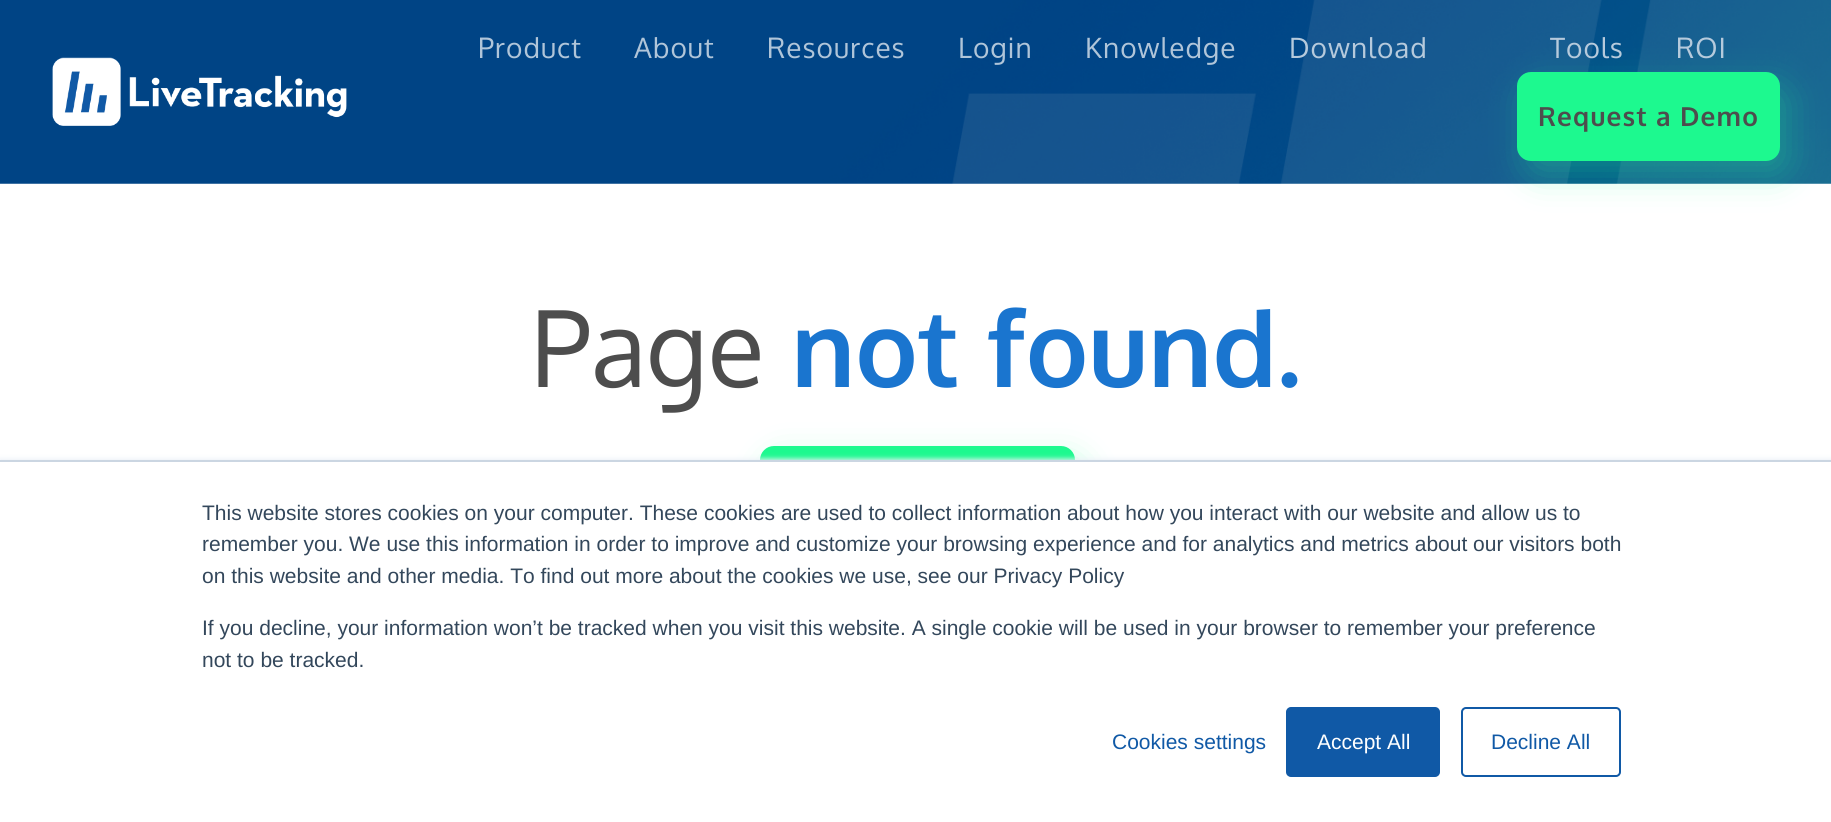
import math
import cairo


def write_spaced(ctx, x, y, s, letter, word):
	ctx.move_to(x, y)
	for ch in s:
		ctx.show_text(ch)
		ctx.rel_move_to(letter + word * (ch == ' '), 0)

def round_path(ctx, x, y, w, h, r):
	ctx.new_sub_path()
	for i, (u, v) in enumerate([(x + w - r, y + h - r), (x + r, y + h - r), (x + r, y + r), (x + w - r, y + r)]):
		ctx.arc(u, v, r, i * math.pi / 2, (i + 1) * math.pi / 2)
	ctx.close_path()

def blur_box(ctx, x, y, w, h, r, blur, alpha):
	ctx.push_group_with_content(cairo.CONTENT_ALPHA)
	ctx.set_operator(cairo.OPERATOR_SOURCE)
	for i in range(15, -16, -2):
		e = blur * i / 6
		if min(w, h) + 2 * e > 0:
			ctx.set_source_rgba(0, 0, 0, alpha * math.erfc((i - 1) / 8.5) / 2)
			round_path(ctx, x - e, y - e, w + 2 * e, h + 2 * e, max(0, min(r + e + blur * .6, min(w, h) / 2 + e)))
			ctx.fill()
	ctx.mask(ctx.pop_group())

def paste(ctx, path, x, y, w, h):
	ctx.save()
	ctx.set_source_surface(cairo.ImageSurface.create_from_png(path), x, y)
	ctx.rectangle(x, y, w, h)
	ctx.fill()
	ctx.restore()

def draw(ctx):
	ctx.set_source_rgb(1, 1, 1)
	ctx.paint()
	paste(ctx, 'media/1.png', 0, 0, 1831, 184)
	paste(ctx, 'media/2.png', 52, 57, 295, 69)
	ctx.select_font_face('Oxygen')
	ctx.set_font_size(28)
	ctx.set_source_rgb(0.69, 0.773, 0.851)
	for x, y, s in [
		(478, 58, 'Product'),
		(634, 58, 'About'),
		(767, 58, 'Resources'),
		(958, 58, 'Login'),
		(1085, 58, 'Knowledge'),
	]:
		write_spaced(ctx, x, y, s, 1, 0)
	ctx.set_source_rgb(0.714, 0.792, 0.863)
	write_spaced(ctx, 1289, 58, 'Download', 1, 0)
	ctx.set_source_rgb(0.114, 0.973, 0.561)
	blur_box(ctx, 1526, 86, 263, 89, 14, 17.5, 0.31)
	ctx.set_source_rgb(0.714, 0.792, 0.863)
	write_spaced(ctx, 1550, 58, 'Tools', 1, 0)
	write_spaced(ctx, 1676, 58, 'ROI', 1, 0)
	ctx.set_source_rgb(0.114, 0.973, 0.561)
	round_path(ctx, 1519, 74, 259, 85, 12)
	ctx.fill_preserve()
	ctx.set_line_width(4)
	ctx.stroke()
	ctx.select_font_face('Oxygen', cairo.FONT_SLANT_NORMAL, cairo.FONT_WEIGHT_BOLD)
	ctx.set_font_size(26.25)
	ctx.set_source_rgb(0.302, 0.302, 0.302)
	write_spaced(ctx, 1538, 126, 'Request a Demo', 1.2, 0)
	ctx.select_font_face('Oxygen')
	ctx.set_font_size(105)
	ctx.move_to(531, 387)
	ctx.show_text('Page')
	ctx.select_font_face('Oxygen', cairo.FONT_SLANT_NORMAL, cairo.FONT_WEIGHT_BOLD)
	ctx.set_source_rgb(0.102, 0.459, 0.812)
	ctx.move_to(791, 387)
	ctx.show_text('not found.')
	ctx.set_source_rgb(0.114, 0.973, 0.561)
	blur_box(ctx, 768, 460, 315, 90, 14, 17.5, 0.31)
	ctx.set_source_rgb(0.114, 0.973, 0.561)
	round_path(ctx, 762, 448, 311, 86, 12)
	ctx.fill_preserve()
	ctx.stroke()
	ctx.set_source_rgb(0.918, 0.941, 0.965)
	blur_box(ctx, 0, 459, 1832, 362, 0, 2.5, 1)
	ctx.set_source_rgb(1, 1, 1)
	ctx.rectangle(0, 462, 1831, 360)
	ctx.fill()
	ctx.set_source_rgb(0.796, 0.839, 0.886)
	ctx.rectangle(0, 460, 1831, 2)
	ctx.fill()
	ctx.select_font_face('Liberation Sans')
	ctx.set_font_size(21)
	ctx.set_source_rgb(0.2, 0.278, 0.357)
	for x, y, s in [
		(202, 520, 'This website stores cookies on your computer. These cookies are used to collect information about how you interact with our website and allow us to'),
		(202, 551, 'remember you. We use this information in order to improve and customize your browsing experience and for analytics and metrics about our visitors both'),
		(202, 583, 'on this website and other media. To find out more about the cookies we use, see our Privacy Policy'),
		(202, 635, 'If you decline, your information won’t be tracked when you visit this website. A single cookie will be used in your browser to remember your preference'),
		(202, 667, 'not to be tracked.'),
	]:
		ctx.move_to(x, y)
		ctx.show_text(s)
	ctx.set_source_rgb(0.063, 0.349, 0.651)
	ctx.move_to(1112, 749)
	ctx.show_text('Cookies settings')
	round_path(ctx, 1287, 708, 152, 68, 4)
	ctx.fill_preserve()
	ctx.set_line_width(2)
	ctx.stroke()
	ctx.set_source_rgb(1, 1, 1)
	ctx.move_to(1317, 749)
	ctx.show_text('Accept All')
	round_path(ctx, 1462, 708, 158, 68, 4)
	ctx.set_source_rgb(0.063, 0.349, 0.651)
	ctx.stroke()
	ctx.move_to(1491, 749)
	ctx.show_text('Decline All')


surface = cairo.ImageSurface(cairo.FORMAT_RGB24, 1831, 822)
ctx = cairo.Context(surface)
options = cairo.FontOptions()
options.set_hint_metrics(cairo.HINT_METRICS_OFF)
options.set_hint_style(cairo.HINT_STYLE_NONE)
ctx.set_font_options(options)
ctx.set_miter_limit(4)
draw(ctx)
surface.write_to_png('image.png')
